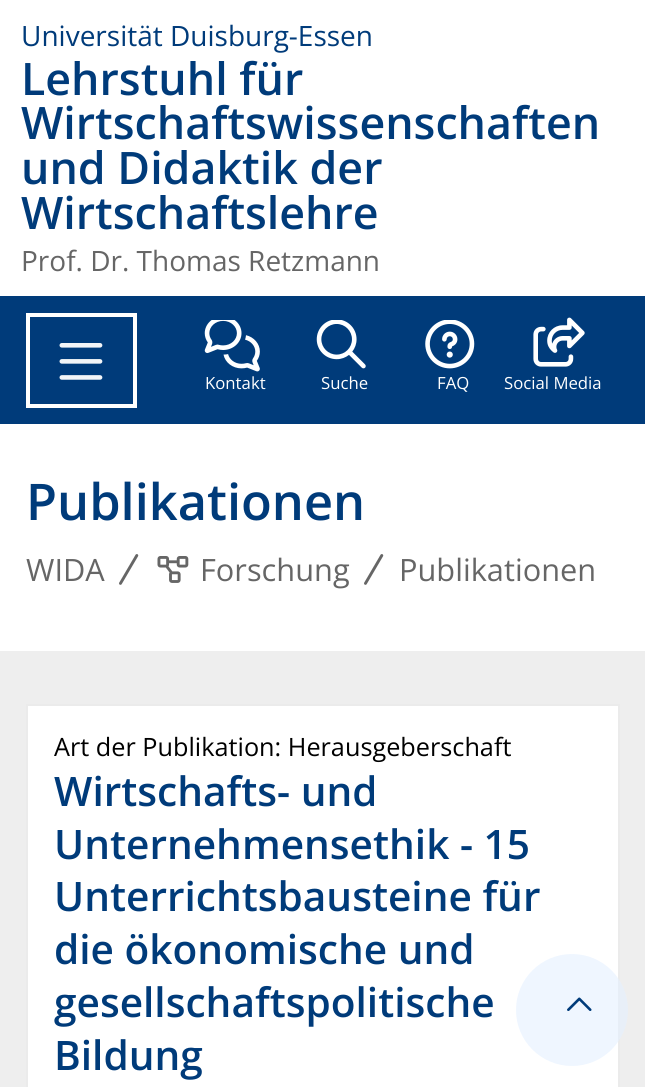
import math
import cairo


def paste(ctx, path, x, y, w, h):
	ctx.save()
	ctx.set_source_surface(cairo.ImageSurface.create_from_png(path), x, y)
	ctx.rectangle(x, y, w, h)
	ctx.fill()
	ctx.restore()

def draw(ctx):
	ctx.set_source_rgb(1, 1, 1)
	ctx.paint()
	ctx.select_font_face('Open Sans')
	ctx.set_font_size(28)
	ctx.set_source_rgb(0, 0.231, 0.478)
	ctx.move_to(21, 46)
	ctx.show_text('Universität Duisburg-Essen')
	ctx.select_font_face('Open Sans SemiBold')
	ctx.set_font_size(44.75)
	for x, y, s in [
		(21, 95, 'Lehrstuhl für'),
		(21, 139, 'Wirtschaftswissenschaften'),
		(21, 184, 'und Didaktik der'),
		(21, 229, 'Wirtschaftslehre'),
	]:
		ctx.move_to(x, y)
		ctx.show_text(s)
	ctx.select_font_face('Open Sans')
	ctx.set_font_size(28)
	ctx.set_source_rgb(0.4, 0.4, 0.4)
	ctx.move_to(21, 271)
	ctx.show_text('Prof. Dr. Thomas Retzmann')
	ctx.set_source_rgb(0, 0.231, 0.478)
	ctx.rectangle(0, 296, 645, 128)
	ctx.fill()
	ctx.rectangle(28, 315, 107, 91)
	ctx.set_source_rgb(1, 1, 1)
	ctx.set_line_width(4)
	ctx.stroke()
	paste(ctx, 'media/1.png', 59, 343, 44, 37)
	paste(ctx, 'media/2.png', 204, 320, 56, 52)
	ctx.set_font_size(16.75)
	ctx.move_to(205, 389)
	ctx.show_text('Kontakt')
	paste(ctx, 'media/3.png', 316, 320, 50, 49)
	ctx.move_to(321, 389)
	ctx.show_text('Suche')
	paste(ctx, 'media/4.png', 425, 320, 50, 49)
	ctx.move_to(437, 389)
	ctx.show_text('FAQ')
	paste(ctx, 'media/5.png', 533, 317, 52, 50)
	ctx.move_to(504, 389)
	ctx.show_text('Social Media')
	ctx.select_font_face('Open Sans SemiBold')
	ctx.set_font_size(50.5)
	ctx.set_source_rgb(0, 0.231, 0.478)
	ctx.move_to(26, 520)
	ctx.show_text('Publikationen')
	ctx.select_font_face('Open Sans')
	ctx.set_font_size(30.75)
	ctx.set_source_rgb(0.4, 0.4, 0.4)
	ctx.move_to(26, 581)
	ctx.show_text('WIDA')
	paste(ctx, 'media/6.png', 119, 554, 20, 31)
	paste(ctx, 'media/7.png', 157, 556, 32, 27)
	ctx.move_to(200, 581)
	ctx.show_text('Forschung')
	paste(ctx, 'media/6.png', 364, 554, 20, 31)
	ctx.move_to(399, 581)
	ctx.show_text('Publikationen')
	ctx.set_source_rgb(0.933, 0.933, 0.933)
	ctx.rectangle(0, 651, 645, 436)
	ctx.fill()
	ctx.set_source_rgb(1, 1, 1)
	ctx.rectangle(27, 705, 592, 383)
	ctx.fill_preserve()
	ctx.set_source_rgb(0.918, 0.918, 0.918)
	ctx.set_line_width(2)
	ctx.stroke()
	ctx.set_font_size(25.25)
	ctx.set_source_rgb(0, 0, 0)
	ctx.move_to(54, 756)
	ctx.show_text('Art der Publikation: Herausgeberschaft')
	ctx.select_font_face('Open Sans SemiBold')
	ctx.set_font_size(40.6)
	ctx.set_source_rgb(0, 0.231, 0.478)
	for x, y, s in [
		(54, 806, 'Wirtschafts- und'),
		(54, 859, 'Unternehmensethik - 15'),
		(54, 911, 'Unterrichtsbausteine für'),
		(54, 964, 'die ökonomische und'),
		(54, 1017, 'gesellschaftspolitische'),
		(54, 1070, 'Bildung'),
	]:
		ctx.move_to(x, y)
		ctx.show_text(s)
	ctx.set_source_rgba(0.894, 0.941, 1, 0.6)
	ctx.new_path()
	ctx.arc(572, 1010, 56, 0, 2 * math.pi)
	ctx.fill()
	paste(ctx, 'media/8.png', 567, 997, 25, 14)


surface = cairo.ImageSurface(cairo.FORMAT_RGB24, 645, 1087)
ctx = cairo.Context(surface)
options = cairo.FontOptions()
options.set_hint_metrics(cairo.HINT_METRICS_OFF)
options.set_hint_style(cairo.HINT_STYLE_NONE)
ctx.set_font_options(options)
ctx.set_miter_limit(4)
draw(ctx)
surface.write_to_png('image.png')
